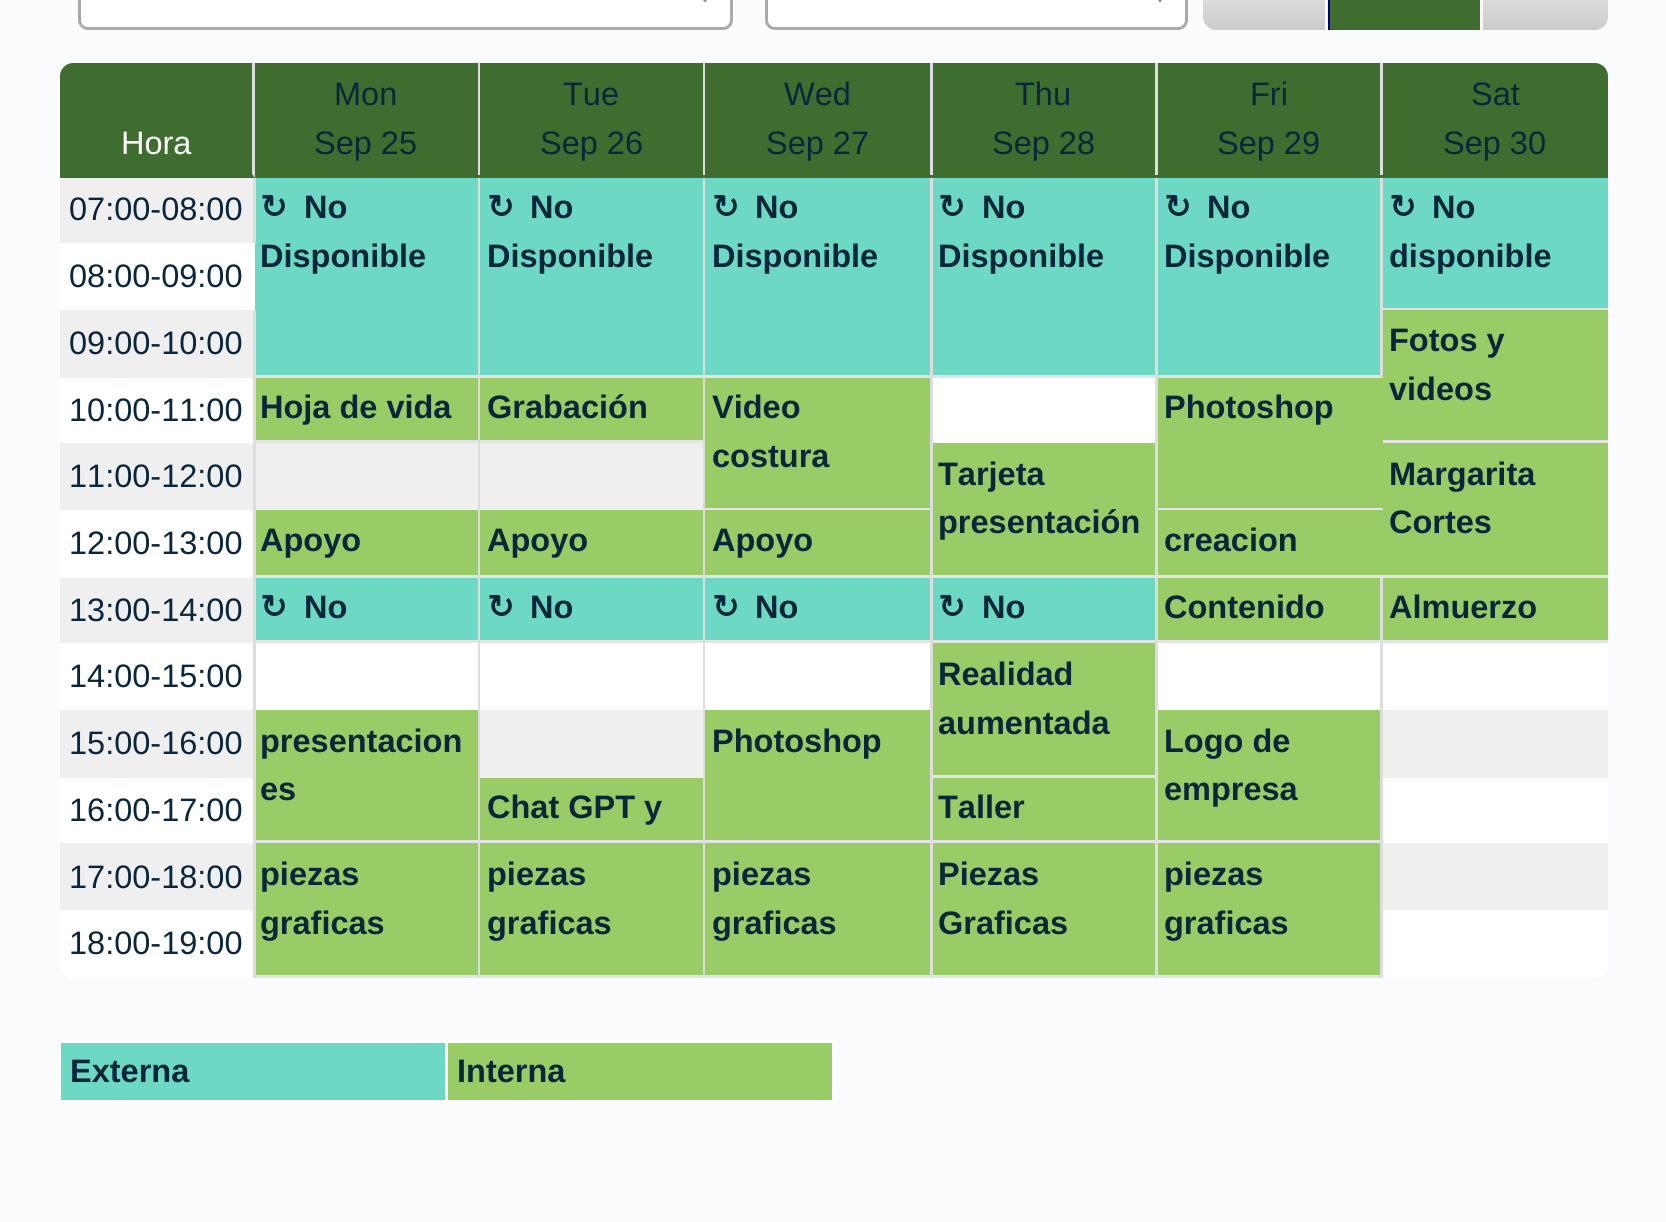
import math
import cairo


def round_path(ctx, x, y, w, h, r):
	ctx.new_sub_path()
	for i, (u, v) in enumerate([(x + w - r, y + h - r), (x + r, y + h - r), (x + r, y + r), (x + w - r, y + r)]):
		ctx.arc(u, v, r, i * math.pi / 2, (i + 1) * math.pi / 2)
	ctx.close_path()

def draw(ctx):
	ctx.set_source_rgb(0.976, 0.984, 0.988)
	ctx.paint()
	ctx.set_source_rgb(1, 1, 1)
	round_path(ctx, 79.5, -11.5, 652, 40, 8.5)
	ctx.fill_preserve()
	ctx.set_source_rgb(0.667, 0.667, 0.667)
	ctx.set_line_width(3)
	ctx.stroke()
	ctx.set_source_rgb(0.533, 0.533, 0.533)
	ctx.new_path()
	ctx.move_to(695, -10)
	ctx.line_to(715, -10)
	ctx.line_to(705, 2.5)
	ctx.close_path()
	ctx.fill()
	ctx.set_source_rgb(1, 1, 1)
	round_path(ctx, 766.5, -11.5, 420, 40, 8.5)
	ctx.fill_preserve()
	ctx.set_source_rgb(0.667, 0.667, 0.667)
	ctx.stroke()
	ctx.set_source_rgb(0.533, 0.533, 0.533)
	ctx.new_path()
	ctx.move_to(1150, -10)
	ctx.line_to(1170, -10)
	ctx.line_to(1160, 2.5)
	ctx.close_path()
	ctx.fill()
	gradient = cairo.LinearGradient(1264, -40, 1264, 30)
	gradient.add_color_stop_rgba(0, 0.933, 0.933, 0.933, 1)
	gradient.add_color_stop_rgba(1, 0.8, 0.8, 0.8, 1)
	ctx.set_source(gradient)
	ctx.new_path()
	ctx.move_to(1216, -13)
	ctx.line_to(1328, -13)
	ctx.line_to(1328, 30)
	ctx.line_to(1216, 30)
	ctx.curve_to(1209, 30, 1203, 24, 1203, 17)
	ctx.line_to(1203, 0)
	ctx.curve_to(1203, -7, 1209, -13, 1216, -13)
	ctx.close_path()
	ctx.fill()
	ctx.set_source_rgb(0.976, 0.984, 0.988)
	ctx.rectangle(1325, 0, 3, 30)
	ctx.fill()
	ctx.set_source_rgb(0.247, 0.427, 0.188)
	ctx.rectangle(1330, 0, 150, 30)
	ctx.fill()
	ctx.save()
	ctx.rectangle(1328, 0, 152, 30)
	ctx.clip()
	ctx.set_source_rgb(0, 0, 0.545)
	ctx.set_fill_rule(cairo.FILL_RULE_EVEN_ODD)
	ctx.new_path()
	ctx.move_to(1080, -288)
	ctx.line_to(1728, -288)
	ctx.line_to(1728, 278)
	ctx.line_to(1080, 278)
	ctx.close_path()
	ctx.move_to(1330, -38)
	ctx.line_to(1482, -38)
	ctx.line_to(1482, 32)
	ctx.line_to(1330, 32)
	ctx.close_path()
	ctx.fill()
	ctx.restore()
	gradient = cairo.LinearGradient(1545, -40, 1545, 30)
	gradient.add_color_stop_rgba(0, 0.933, 0.933, 0.933, 1)
	gradient.add_color_stop_rgba(1, 0.8, 0.8, 0.8, 1)
	ctx.set_source(gradient)
	ctx.new_path()
	ctx.move_to(1483, -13)
	ctx.line_to(1595, -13)
	ctx.curve_to(1602, -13, 1608, -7, 1608, 0)
	ctx.line_to(1608, 17)
	ctx.curve_to(1608, 24, 1602, 30, 1595, 30)
	ctx.line_to(1483, 30)
	ctx.close_path()
	ctx.fill()
	ctx.set_source_rgb(0.247, 0.427, 0.188)
	ctx.new_path()
	ctx.move_to(73, 63)
	ctx.line_to(253, 63)
	ctx.line_to(253, 175)
	ctx.line_to(60, 175)
	ctx.line_to(60, 76)
	ctx.curve_to(60, 69, 66, 63, 73, 63)
	ctx.close_path()
	ctx.fill()
	ctx.save()
	ctx.rectangle(60, 63, 1548, 915)
	ctx.clip()
	ctx.set_source_rgb(0.867, 0.867, 0.867)
	ctx.new_path()
	ctx.move_to(255, 62)
	ctx.line_to(255, 178)
	ctx.line_to(252, 174)
	ctx.line_to(252, 62)
	ctx.close_path()
	ctx.fill()
	ctx.restore()
	ctx.new_path()
	ctx.move_to(255, 178)
	ctx.line_to(60, 178)
	ctx.line_to(60, 175)
	ctx.line_to(252, 175)
	ctx.line_to(252, 174)
	ctx.close_path()
	ctx.fill()
	ctx.select_font_face('Liberation Sans')
	ctx.set_font_size(32.5)
	ctx.set_source_rgb(1, 1, 1)
	ctx.move_to(121, 154)
	ctx.show_text('Hora')
	ctx.set_source_rgb(0.247, 0.427, 0.188)
	ctx.rectangle(255, 63, 223, 112)
	ctx.fill()
	ctx.set_source_rgb(0.867, 0.867, 0.867)
	ctx.rectangle(478, 63, 2, 915)
	ctx.rectangle(703, 63, 2, 915)
	ctx.rectangle(930, 63, 3, 915)
	ctx.rectangle(1155, 63, 3, 915)
	ctx.rectangle(1380, 63, 3, 315)
	ctx.fill()
	ctx.set_source_rgb(0.247, 0.427, 0.188)
	ctx.rectangle(255, 175, 1353, 3)
	ctx.fill()
	ctx.set_source_rgb(0.043, 0.149, 0.231)
	ctx.move_to(334, 105)
	ctx.show_text('Mon')
	ctx.move_to(314, 154)
	ctx.show_text('Sep 25')
	ctx.set_source_rgb(0.247, 0.427, 0.188)
	ctx.rectangle(480, 63, 223, 112)
	ctx.fill()
	ctx.set_source_rgb(0.043, 0.149, 0.231)
	ctx.move_to(563, 105)
	ctx.show_text('Tue')
	ctx.move_to(540, 154)
	ctx.show_text('Sep 26')
	ctx.set_source_rgb(0.247, 0.427, 0.188)
	ctx.rectangle(705, 63, 225, 112)
	ctx.fill()
	ctx.set_source_rgb(0.043, 0.149, 0.231)
	ctx.move_to(784, 105)
	ctx.show_text('Wed')
	ctx.move_to(766, 154)
	ctx.show_text('Sep 27')
	ctx.set_source_rgb(0.247, 0.427, 0.188)
	ctx.rectangle(933, 63, 222, 112)
	ctx.fill()
	ctx.set_source_rgb(0.043, 0.149, 0.231)
	ctx.move_to(1015, 105)
	ctx.show_text('Thu')
	ctx.move_to(992, 154)
	ctx.show_text('Sep 28')
	ctx.set_source_rgb(0.247, 0.427, 0.188)
	ctx.rectangle(1158, 63, 222, 112)
	ctx.fill()
	ctx.set_source_rgb(0.043, 0.149, 0.231)
	ctx.move_to(1250, 105)
	ctx.show_text('Fri')
	ctx.move_to(1217, 154)
	ctx.show_text('Sep 29')
	ctx.set_source_rgb(0.247, 0.427, 0.188)
	ctx.new_path()
	ctx.move_to(1383, 63)
	ctx.line_to(1595, 63)
	ctx.curve_to(1602, 63, 1608, 69, 1608, 76)
	ctx.line_to(1608, 175)
	ctx.line_to(1383, 175)
	ctx.close_path()
	ctx.fill()
	ctx.set_source_rgb(0.043, 0.149, 0.231)
	ctx.move_to(1471, 105)
	ctx.show_text('Sat')
	ctx.move_to(1443, 154)
	ctx.show_text('Sep 30')
	ctx.set_source_rgb(0.937, 0.937, 0.937)
	ctx.rectangle(60, 178, 193, 65)
	ctx.fill()
	ctx.set_source_rgb(0.427, 0.851, 0.769)
	ctx.rectangle(255, 178, 223, 197)
	ctx.fill()
	ctx.set_source_rgb(0.867, 0.867, 0.867)
	ctx.rectangle(253, 178, 3, 65)
	ctx.fill()
	ctx.set_source_rgb(0.043, 0.149, 0.231)
	ctx.move_to(69, 220)
	ctx.show_text('07:00-08:00')
	ctx.set_source_rgb(0.894, 0.894, 0.894)
	ctx.rectangle(255, 375, 223, 3)
	ctx.fill()
	ctx.select_font_face('DejaVu Sans', cairo.FONT_SLANT_NORMAL, cairo.FONT_WEIGHT_BOLD)
	ctx.set_source_rgb(0.043, 0.149, 0.231)
	ctx.move_to(260, 218)
	ctx.show_text('↻')
	ctx.select_font_face('Liberation Sans', cairo.FONT_SLANT_NORMAL, cairo.FONT_WEIGHT_BOLD)
	ctx.move_to(304, 218)
	ctx.show_text('No')
	ctx.move_to(260, 267)
	ctx.show_text('Disponible')
	ctx.set_source_rgb(0.427, 0.851, 0.769)
	ctx.rectangle(480, 178, 223, 197)
	ctx.fill()
	ctx.set_source_rgb(0.894, 0.894, 0.894)
	ctx.rectangle(480, 375, 223, 3)
	ctx.fill()
	ctx.select_font_face('DejaVu Sans', cairo.FONT_SLANT_NORMAL, cairo.FONT_WEIGHT_BOLD)
	ctx.set_source_rgb(0.043, 0.149, 0.231)
	ctx.move_to(487, 218)
	ctx.show_text('↻')
	ctx.select_font_face('Liberation Sans', cairo.FONT_SLANT_NORMAL, cairo.FONT_WEIGHT_BOLD)
	ctx.move_to(530, 218)
	ctx.show_text('No')
	ctx.move_to(487, 267)
	ctx.show_text('Disponible')
	ctx.set_source_rgb(0.427, 0.851, 0.769)
	ctx.rectangle(705, 178, 225, 197)
	ctx.fill()
	ctx.set_source_rgb(0.894, 0.894, 0.894)
	ctx.rectangle(705, 375, 225, 3)
	ctx.fill()
	ctx.select_font_face('DejaVu Sans', cairo.FONT_SLANT_NORMAL, cairo.FONT_WEIGHT_BOLD)
	ctx.set_source_rgb(0.043, 0.149, 0.231)
	ctx.move_to(712, 218)
	ctx.show_text('↻')
	ctx.select_font_face('Liberation Sans', cairo.FONT_SLANT_NORMAL, cairo.FONT_WEIGHT_BOLD)
	ctx.move_to(755, 218)
	ctx.show_text('No')
	ctx.move_to(712, 267)
	ctx.show_text('Disponible')
	ctx.set_source_rgb(0.427, 0.851, 0.769)
	ctx.rectangle(933, 178, 222, 197)
	ctx.fill()
	ctx.set_source_rgb(0.894, 0.894, 0.894)
	ctx.rectangle(933, 375, 222, 3)
	ctx.fill()
	ctx.select_font_face('DejaVu Sans', cairo.FONT_SLANT_NORMAL, cairo.FONT_WEIGHT_BOLD)
	ctx.set_source_rgb(0.043, 0.149, 0.231)
	ctx.move_to(938, 218)
	ctx.show_text('↻')
	ctx.select_font_face('Liberation Sans', cairo.FONT_SLANT_NORMAL, cairo.FONT_WEIGHT_BOLD)
	ctx.move_to(982, 218)
	ctx.show_text('No')
	ctx.move_to(938, 267)
	ctx.show_text('Disponible')
	ctx.set_source_rgb(0.427, 0.851, 0.769)
	ctx.rectangle(1158, 178, 222, 197)
	ctx.fill()
	ctx.set_source_rgb(0.894, 0.894, 0.894)
	ctx.rectangle(1158, 375, 222, 3)
	ctx.fill()
	ctx.select_font_face('DejaVu Sans', cairo.FONT_SLANT_NORMAL, cairo.FONT_WEIGHT_BOLD)
	ctx.set_source_rgb(0.043, 0.149, 0.231)
	ctx.move_to(1164, 218)
	ctx.show_text('↻')
	ctx.select_font_face('Liberation Sans', cairo.FONT_SLANT_NORMAL, cairo.FONT_WEIGHT_BOLD)
	ctx.move_to(1207, 218)
	ctx.show_text('No')
	ctx.move_to(1164, 267)
	ctx.show_text('Disponible')
	ctx.set_source_rgb(0.427, 0.851, 0.769)
	ctx.rectangle(1383, 178, 225, 130)
	ctx.fill()
	ctx.set_source_rgb(0.894, 0.894, 0.894)
	ctx.rectangle(1383, 308, 225, 2)
	ctx.fill()
	ctx.select_font_face('DejaVu Sans', cairo.FONT_SLANT_NORMAL, cairo.FONT_WEIGHT_BOLD)
	ctx.set_source_rgb(0.043, 0.149, 0.231)
	ctx.move_to(1389, 218)
	ctx.show_text('↻')
	ctx.select_font_face('Liberation Sans', cairo.FONT_SLANT_NORMAL, cairo.FONT_WEIGHT_BOLD)
	ctx.move_to(1432, 218)
	ctx.show_text('No')
	ctx.move_to(1389, 267)
	ctx.show_text('disponible')
	ctx.set_source_rgb(1, 1, 1)
	ctx.rectangle(60, 243, 195, 67)
	ctx.fill()
	ctx.select_font_face('Liberation Sans')
	ctx.set_source_rgb(0.043, 0.149, 0.231)
	ctx.move_to(69, 287)
	ctx.show_text('08:00-09:00')
	ctx.set_source_rgb(0.937, 0.937, 0.937)
	ctx.rectangle(60, 310, 193, 68)
	ctx.fill()
	ctx.set_source_rgb(0.894, 0.894, 0.894)
	ctx.rectangle(255, 440, 223, 3)
	ctx.rectangle(255, 575, 223, 3)
	ctx.rectangle(255, 640, 223, 3)
	ctx.rectangle(255, 840, 223, 3)
	ctx.rectangle(255, 975, 223, 3)
	ctx.fill()
	ctx.set_source_rgb(0.867, 0.867, 0.867)
	ctx.rectangle(253, 310, 3, 668)
	ctx.fill()
	ctx.set_source_rgb(0.043, 0.149, 0.231)
	ctx.move_to(69, 354)
	ctx.show_text('09:00-10:00')
	ctx.set_source_rgb(0.6, 0.8, 0.4)
	ctx.rectangle(1383, 310, 225, 130)
	ctx.fill()
	ctx.set_source_rgb(0.894, 0.894, 0.894)
	ctx.rectangle(1383, 440, 225, 3)
	ctx.fill()
	ctx.select_font_face('Liberation Sans', cairo.FONT_SLANT_NORMAL, cairo.FONT_WEIGHT_BOLD)
	ctx.set_source_rgb(0.043, 0.149, 0.231)
	ctx.move_to(1389, 351)
	ctx.show_text('Fotos y')
	ctx.move_to(1389, 400)
	ctx.show_text('videos')
	ctx.set_source_rgb(1, 1, 1)
	ctx.rectangle(60, 378, 193, 65)
	ctx.fill()
	ctx.select_font_face('Liberation Sans')
	ctx.set_source_rgb(0.043, 0.149, 0.231)
	ctx.move_to(69, 421)
	ctx.show_text('10:00-11:00')
	ctx.set_source_rgb(0.6, 0.8, 0.4)
	ctx.rectangle(256, 378, 222, 62)
	ctx.fill()
	ctx.select_font_face('Liberation Sans', cairo.FONT_SLANT_NORMAL, cairo.FONT_WEIGHT_BOLD)
	ctx.set_source_rgb(0.043, 0.149, 0.231)
	ctx.move_to(260, 418)
	ctx.show_text('Hoja de vida')
	ctx.set_source_rgb(0.6, 0.8, 0.4)
	ctx.rectangle(480, 378, 223, 62)
	ctx.fill()
	ctx.set_source_rgb(0.894, 0.894, 0.894)
	ctx.rectangle(480, 440, 223, 3)
	ctx.fill()
	ctx.set_source_rgb(0.043, 0.149, 0.231)
	ctx.move_to(487, 418)
	ctx.show_text('Grabación')
	ctx.set_source_rgb(0.6, 0.8, 0.4)
	ctx.rectangle(705, 378, 225, 130)
	ctx.fill()
	ctx.set_source_rgb(0.894, 0.894, 0.894)
	ctx.rectangle(705, 508, 225, 2)
	ctx.fill()
	ctx.set_source_rgb(0.043, 0.149, 0.231)
	ctx.move_to(712, 418)
	ctx.show_text('Video')
	ctx.move_to(712, 467)
	ctx.show_text('costura')
	ctx.set_source_rgb(1, 1, 1)
	ctx.rectangle(933, 378, 222, 65)
	ctx.fill()
	ctx.set_source_rgb(0.6, 0.8, 0.4)
	ctx.rectangle(1158, 378, 225, 130)
	ctx.fill()
	ctx.set_source_rgb(0.894, 0.894, 0.894)
	ctx.rectangle(1158, 508, 225, 2)
	ctx.fill()
	ctx.set_source_rgb(0.043, 0.149, 0.231)
	ctx.move_to(1164, 418)
	ctx.show_text('Photoshop')
	ctx.set_source_rgb(0.937, 0.937, 0.937)
	ctx.rectangle(60, 443, 193, 67)
	ctx.fill()
	ctx.select_font_face('Liberation Sans')
	ctx.set_source_rgb(0.043, 0.149, 0.231)
	ctx.move_to(69, 487)
	ctx.show_text('11:00-12:00')
	ctx.set_source_rgb(0.937, 0.937, 0.937)
	ctx.rectangle(256, 443, 222, 67)
	ctx.rectangle(480, 443, 223, 67)
	ctx.fill()
	ctx.set_source_rgb(0.6, 0.8, 0.4)
	ctx.rectangle(933, 443, 222, 132)
	ctx.fill()
	ctx.set_source_rgb(0.894, 0.894, 0.894)
	ctx.rectangle(933, 575, 222, 3)
	ctx.fill()
	ctx.select_font_face('Liberation Sans', cairo.FONT_SLANT_NORMAL, cairo.FONT_WEIGHT_BOLD)
	ctx.set_source_rgb(0.043, 0.149, 0.231)
	ctx.move_to(938, 485)
	ctx.show_text('Tarjeta')
	ctx.move_to(938, 533)
	ctx.show_text('presentación')
	ctx.set_source_rgb(0.6, 0.8, 0.4)
	ctx.rectangle(1383, 443, 225, 132)
	ctx.fill()
	ctx.set_source_rgb(0.894, 0.894, 0.894)
	ctx.rectangle(1158, 575, 450, 3)
	ctx.fill()
	ctx.set_source_rgb(0.043, 0.149, 0.231)
	ctx.move_to(1389, 485)
	ctx.show_text('Margarita')
	ctx.move_to(1389, 533)
	ctx.show_text('Cortes')
	ctx.set_source_rgb(1, 1, 1)
	ctx.rectangle(60, 510, 193, 68)
	ctx.fill()
	ctx.select_font_face('Liberation Sans')
	ctx.set_source_rgb(0.043, 0.149, 0.231)
	ctx.move_to(69, 554)
	ctx.show_text('12:00-13:00')
	ctx.set_source_rgb(0.6, 0.8, 0.4)
	ctx.rectangle(256, 510, 222, 65)
	ctx.fill()
	ctx.select_font_face('Liberation Sans', cairo.FONT_SLANT_NORMAL, cairo.FONT_WEIGHT_BOLD)
	ctx.set_source_rgb(0.043, 0.149, 0.231)
	ctx.move_to(260, 551)
	ctx.show_text('Apoyo')
	ctx.set_source_rgb(0.6, 0.8, 0.4)
	ctx.rectangle(480, 510, 223, 65)
	ctx.fill()
	ctx.set_source_rgb(0.894, 0.894, 0.894)
	ctx.rectangle(480, 575, 223, 3)
	ctx.fill()
	ctx.set_source_rgb(0.043, 0.149, 0.231)
	ctx.move_to(487, 551)
	ctx.show_text('Apoyo')
	ctx.set_source_rgb(0.6, 0.8, 0.4)
	ctx.rectangle(705, 510, 225, 65)
	ctx.fill()
	ctx.set_source_rgb(0.894, 0.894, 0.894)
	ctx.rectangle(705, 575, 225, 3)
	ctx.fill()
	ctx.set_source_rgb(0.043, 0.149, 0.231)
	ctx.move_to(712, 551)
	ctx.show_text('Apoyo')
	ctx.set_source_rgb(0.6, 0.8, 0.4)
	ctx.rectangle(1158, 510, 225, 65)
	ctx.fill()
	ctx.set_source_rgb(0.043, 0.149, 0.231)
	ctx.move_to(1164, 551)
	ctx.show_text('creacion')
	ctx.set_source_rgb(0.937, 0.937, 0.937)
	ctx.rectangle(60, 578, 193, 65)
	ctx.fill()
	ctx.select_font_face('Liberation Sans')
	ctx.set_source_rgb(0.043, 0.149, 0.231)
	ctx.move_to(69, 621)
	ctx.show_text('13:00-14:00')
	ctx.set_source_rgb(0.427, 0.851, 0.769)
	ctx.rectangle(256, 578, 222, 62)
	ctx.fill()
	ctx.select_font_face('DejaVu Sans', cairo.FONT_SLANT_NORMAL, cairo.FONT_WEIGHT_BOLD)
	ctx.set_source_rgb(0.043, 0.149, 0.231)
	ctx.move_to(260, 618)
	ctx.show_text('↻')
	ctx.select_font_face('Liberation Sans', cairo.FONT_SLANT_NORMAL, cairo.FONT_WEIGHT_BOLD)
	ctx.move_to(304, 618)
	ctx.show_text('No')
	ctx.set_source_rgb(0.427, 0.851, 0.769)
	ctx.rectangle(480, 578, 223, 62)
	ctx.fill()
	ctx.set_source_rgb(0.894, 0.894, 0.894)
	ctx.rectangle(480, 640, 223, 3)
	ctx.fill()
	ctx.select_font_face('DejaVu Sans', cairo.FONT_SLANT_NORMAL, cairo.FONT_WEIGHT_BOLD)
	ctx.set_source_rgb(0.043, 0.149, 0.231)
	ctx.move_to(487, 618)
	ctx.show_text('↻')
	ctx.select_font_face('Liberation Sans', cairo.FONT_SLANT_NORMAL, cairo.FONT_WEIGHT_BOLD)
	ctx.move_to(530, 618)
	ctx.show_text('No')
	ctx.set_source_rgb(0.427, 0.851, 0.769)
	ctx.rectangle(705, 578, 225, 62)
	ctx.fill()
	ctx.set_source_rgb(0.894, 0.894, 0.894)
	ctx.rectangle(705, 640, 225, 3)
	ctx.fill()
	ctx.select_font_face('DejaVu Sans', cairo.FONT_SLANT_NORMAL, cairo.FONT_WEIGHT_BOLD)
	ctx.set_source_rgb(0.043, 0.149, 0.231)
	ctx.move_to(712, 618)
	ctx.show_text('↻')
	ctx.select_font_face('Liberation Sans', cairo.FONT_SLANT_NORMAL, cairo.FONT_WEIGHT_BOLD)
	ctx.move_to(755, 618)
	ctx.show_text('No')
	ctx.set_source_rgb(0.427, 0.851, 0.769)
	ctx.rectangle(933, 578, 222, 62)
	ctx.fill()
	ctx.set_source_rgb(0.894, 0.894, 0.894)
	ctx.rectangle(933, 640, 222, 3)
	ctx.fill()
	ctx.select_font_face('DejaVu Sans', cairo.FONT_SLANT_NORMAL, cairo.FONT_WEIGHT_BOLD)
	ctx.set_source_rgb(0.043, 0.149, 0.231)
	ctx.move_to(938, 618)
	ctx.show_text('↻')
	ctx.select_font_face('Liberation Sans', cairo.FONT_SLANT_NORMAL, cairo.FONT_WEIGHT_BOLD)
	ctx.move_to(982, 618)
	ctx.show_text('No')
	ctx.set_source_rgb(0.867, 0.867, 0.867)
	ctx.rectangle(1380, 578, 3, 400)
	ctx.fill()
	ctx.set_source_rgb(0.6, 0.8, 0.4)
	ctx.rectangle(1158, 578, 222, 62)
	ctx.fill()
	ctx.set_source_rgb(0.894, 0.894, 0.894)
	ctx.rectangle(1158, 640, 222, 3)
	ctx.fill()
	ctx.set_source_rgb(0.043, 0.149, 0.231)
	ctx.move_to(1164, 618)
	ctx.show_text('Contenido')
	ctx.set_source_rgb(0.6, 0.8, 0.4)
	ctx.rectangle(1383, 578, 225, 62)
	ctx.fill()
	ctx.set_source_rgb(0.894, 0.894, 0.894)
	ctx.rectangle(1383, 640, 225, 3)
	ctx.fill()
	ctx.set_source_rgb(0.043, 0.149, 0.231)
	ctx.move_to(1389, 618)
	ctx.show_text('Almuerzo')
	ctx.set_source_rgb(1, 1, 1)
	ctx.rectangle(60, 643, 193, 67)
	ctx.fill()
	ctx.select_font_face('Liberation Sans')
	ctx.set_source_rgb(0.043, 0.149, 0.231)
	ctx.move_to(69, 687)
	ctx.show_text('14:00-15:00')
	ctx.set_source_rgb(1, 1, 1)
	ctx.rectangle(256, 643, 222, 67)
	ctx.rectangle(480, 643, 223, 67)
	ctx.rectangle(705, 643, 225, 67)
	ctx.fill()
	ctx.set_source_rgb(0.6, 0.8, 0.4)
	ctx.rectangle(933, 643, 222, 132)
	ctx.fill()
	ctx.set_source_rgb(0.894, 0.894, 0.894)
	ctx.rectangle(933, 775, 222, 3)
	ctx.fill()
	ctx.select_font_face('Liberation Sans', cairo.FONT_SLANT_NORMAL, cairo.FONT_WEIGHT_BOLD)
	ctx.set_source_rgb(0.043, 0.149, 0.231)
	ctx.move_to(938, 685)
	ctx.show_text('Realidad')
	ctx.move_to(938, 734)
	ctx.show_text('aumentada')
	ctx.set_source_rgb(1, 1, 1)
	ctx.rectangle(1158, 643, 222, 67)
	ctx.rectangle(1383, 643, 225, 67)
	ctx.fill()
	ctx.set_source_rgb(0.937, 0.937, 0.937)
	ctx.rectangle(60, 710, 193, 68)
	ctx.fill()
	ctx.select_font_face('Liberation Sans')
	ctx.set_source_rgb(0.043, 0.149, 0.231)
	ctx.move_to(69, 754)
	ctx.show_text('15:00-16:00')
	ctx.set_source_rgb(0.6, 0.8, 0.4)
	ctx.rectangle(256, 710, 222, 130)
	ctx.fill()
	ctx.select_font_face('Liberation Sans', cairo.FONT_SLANT_NORMAL, cairo.FONT_WEIGHT_BOLD)
	ctx.set_source_rgb(0.043, 0.149, 0.231)
	ctx.move_to(260, 752)
	ctx.show_text('presentacion')
	ctx.move_to(260, 800)
	ctx.show_text('es')
	ctx.set_source_rgb(0.937, 0.937, 0.937)
	ctx.rectangle(480, 710, 223, 68)
	ctx.fill()
	ctx.set_source_rgb(0.6, 0.8, 0.4)
	ctx.rectangle(705, 710, 225, 130)
	ctx.fill()
	ctx.set_source_rgb(0.894, 0.894, 0.894)
	ctx.rectangle(705, 840, 225, 3)
	ctx.fill()
	ctx.set_source_rgb(0.043, 0.149, 0.231)
	ctx.move_to(712, 752)
	ctx.show_text('Photoshop')
	ctx.set_source_rgb(0.6, 0.8, 0.4)
	ctx.rectangle(1158, 710, 222, 130)
	ctx.fill()
	ctx.set_source_rgb(0.894, 0.894, 0.894)
	ctx.rectangle(1158, 840, 222, 3)
	ctx.fill()
	ctx.set_source_rgb(0.043, 0.149, 0.231)
	ctx.move_to(1164, 752)
	ctx.show_text('Logo de')
	ctx.move_to(1164, 800)
	ctx.show_text('empresa')
	ctx.set_source_rgb(0.937, 0.937, 0.937)
	ctx.rectangle(1383, 710, 225, 68)
	ctx.fill()
	ctx.set_source_rgb(1, 1, 1)
	ctx.rectangle(60, 778, 193, 65)
	ctx.fill()
	ctx.select_font_face('Liberation Sans')
	ctx.set_source_rgb(0.043, 0.149, 0.231)
	ctx.move_to(69, 821)
	ctx.show_text('16:00-17:00')
	ctx.set_source_rgb(0.6, 0.8, 0.4)
	ctx.rectangle(480, 778, 223, 62)
	ctx.fill()
	ctx.set_source_rgb(0.894, 0.894, 0.894)
	ctx.rectangle(480, 840, 223, 3)
	ctx.fill()
	ctx.select_font_face('Liberation Sans', cairo.FONT_SLANT_NORMAL, cairo.FONT_WEIGHT_BOLD)
	ctx.set_source_rgb(0.043, 0.149, 0.231)
	ctx.move_to(487, 818)
	ctx.show_text('Chat GPT y')
	ctx.set_source_rgb(0.6, 0.8, 0.4)
	ctx.rectangle(933, 778, 222, 62)
	ctx.fill()
	ctx.set_source_rgb(0.894, 0.894, 0.894)
	ctx.rectangle(933, 840, 222, 3)
	ctx.fill()
	ctx.set_source_rgb(0.043, 0.149, 0.231)
	ctx.move_to(938, 818)
	ctx.show_text('Taller')
	ctx.set_source_rgb(1, 1, 1)
	ctx.rectangle(1383, 778, 225, 65)
	ctx.fill()
	ctx.set_source_rgb(0.937, 0.937, 0.937)
	ctx.rectangle(60, 843, 193, 67)
	ctx.fill()
	ctx.select_font_face('Liberation Sans')
	ctx.set_source_rgb(0.043, 0.149, 0.231)
	ctx.move_to(69, 888)
	ctx.show_text('17:00-18:00')
	ctx.set_source_rgb(0.6, 0.8, 0.4)
	ctx.rectangle(256, 843, 222, 132)
	ctx.fill()
	ctx.select_font_face('Liberation Sans', cairo.FONT_SLANT_NORMAL, cairo.FONT_WEIGHT_BOLD)
	ctx.set_source_rgb(0.043, 0.149, 0.231)
	ctx.move_to(260, 885)
	ctx.show_text('piezas')
	ctx.move_to(260, 934)
	ctx.show_text('graficas')
	ctx.set_source_rgb(0.6, 0.8, 0.4)
	ctx.rectangle(480, 843, 223, 132)
	ctx.fill()
	ctx.set_source_rgb(0.894, 0.894, 0.894)
	ctx.rectangle(480, 975, 223, 3)
	ctx.fill()
	ctx.set_source_rgb(0.043, 0.149, 0.231)
	ctx.move_to(487, 885)
	ctx.show_text('piezas')
	ctx.move_to(487, 934)
	ctx.show_text('graficas')
	ctx.set_source_rgb(0.6, 0.8, 0.4)
	ctx.rectangle(705, 843, 225, 132)
	ctx.fill()
	ctx.set_source_rgb(0.894, 0.894, 0.894)
	ctx.rectangle(705, 975, 225, 3)
	ctx.fill()
	ctx.set_source_rgb(0.043, 0.149, 0.231)
	ctx.move_to(712, 885)
	ctx.show_text('piezas')
	ctx.move_to(712, 934)
	ctx.show_text('graficas')
	ctx.set_source_rgb(0.6, 0.8, 0.4)
	ctx.rectangle(933, 843, 222, 132)
	ctx.fill()
	ctx.set_source_rgb(0.894, 0.894, 0.894)
	ctx.rectangle(933, 975, 222, 3)
	ctx.fill()
	ctx.set_source_rgb(0.043, 0.149, 0.231)
	ctx.move_to(938, 885)
	ctx.show_text('Piezas')
	ctx.move_to(938, 934)
	ctx.show_text('Graficas')
	ctx.set_source_rgb(0.6, 0.8, 0.4)
	ctx.rectangle(1158, 843, 222, 132)
	ctx.fill()
	ctx.set_source_rgb(0.894, 0.894, 0.894)
	ctx.rectangle(1158, 975, 222, 3)
	ctx.fill()
	ctx.set_source_rgb(0.043, 0.149, 0.231)
	ctx.move_to(1164, 885)
	ctx.show_text('piezas')
	ctx.move_to(1164, 934)
	ctx.show_text('graficas')
	ctx.set_source_rgb(0.937, 0.937, 0.937)
	ctx.rectangle(1383, 843, 225, 67)
	ctx.fill()
	ctx.set_source_rgb(1, 1, 1)
	ctx.new_path()
	ctx.move_to(60, 910)
	ctx.line_to(253, 910)
	ctx.line_to(253, 978)
	ctx.line_to(73, 978)
	ctx.curve_to(66, 978, 60, 972, 60, 965)
	ctx.close_path()
	ctx.fill()
	ctx.select_font_face('Liberation Sans')
	ctx.set_source_rgb(0.043, 0.149, 0.231)
	ctx.move_to(69, 954)
	ctx.show_text('18:00-19:00')
	ctx.set_source_rgb(1, 1, 1)
	ctx.new_path()
	ctx.move_to(1383, 910)
	ctx.line_to(1608, 910)
	ctx.line_to(1608, 965)
	ctx.curve_to(1608, 972, 1602, 978, 1595, 978)
	ctx.line_to(1383, 978)
	ctx.close_path()
	ctx.fill()
	ctx.set_source_rgb(0.427, 0.851, 0.769)
	ctx.rectangle(61, 1043, 384, 57)
	ctx.fill()
	ctx.save()
	ctx.rectangle(60, 0, 1548, 1103)
	ctx.clip()
	ctx.rectangle(59.5, 1041.5, 387, 60)
	ctx.set_source_rgb(1, 1, 1)
	ctx.stroke()
	ctx.restore()
	ctx.select_font_face('Liberation Sans', cairo.FONT_SLANT_NORMAL, cairo.FONT_WEIGHT_BOLD)
	ctx.set_source_rgb(0.043, 0.149, 0.231)
	ctx.move_to(70, 1082)
	ctx.show_text('Externa')
	ctx.set_source_rgb(0.6, 0.8, 0.4)
	ctx.rectangle(446.5, 1041.5, 387, 60)
	ctx.fill_preserve()
	ctx.set_source_rgb(1, 1, 1)
	ctx.stroke()
	ctx.set_source_rgb(0.043, 0.149, 0.231)
	ctx.move_to(457, 1082)
	ctx.show_text('Interna')


surface = cairo.ImageSurface(cairo.FORMAT_RGB24, 1666, 1222)
ctx = cairo.Context(surface)
options = cairo.FontOptions()
options.set_hint_metrics(cairo.HINT_METRICS_OFF)
options.set_hint_style(cairo.HINT_STYLE_NONE)
ctx.set_font_options(options)
ctx.set_miter_limit(4)
draw(ctx)
surface.write_to_png('image.png')
